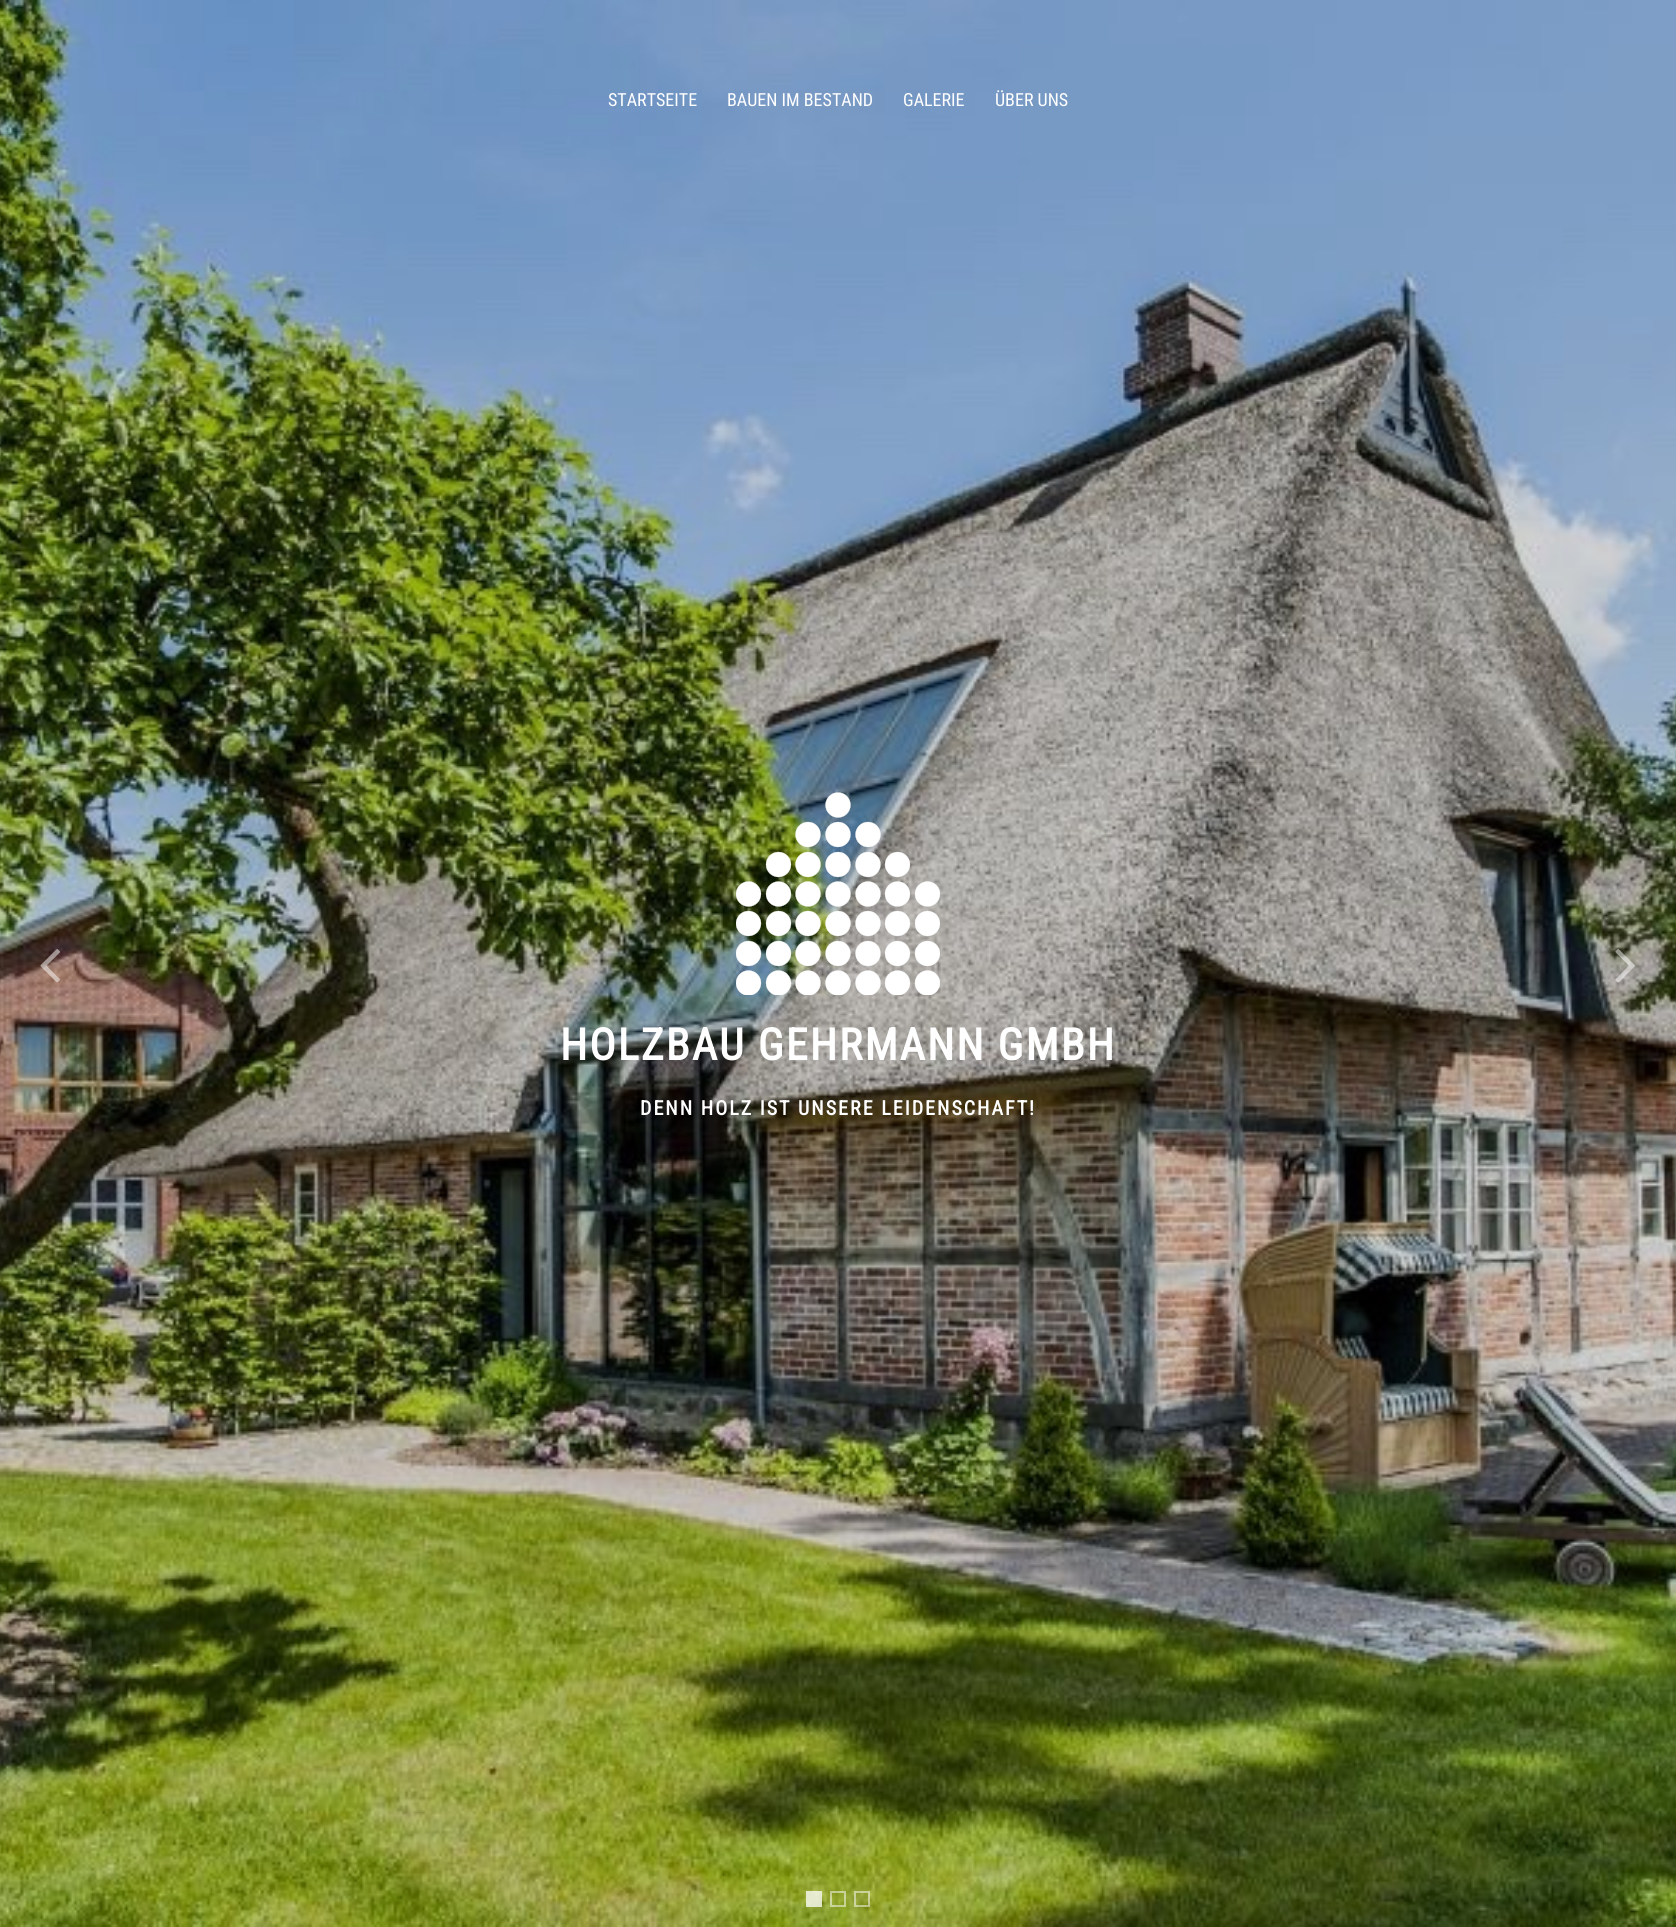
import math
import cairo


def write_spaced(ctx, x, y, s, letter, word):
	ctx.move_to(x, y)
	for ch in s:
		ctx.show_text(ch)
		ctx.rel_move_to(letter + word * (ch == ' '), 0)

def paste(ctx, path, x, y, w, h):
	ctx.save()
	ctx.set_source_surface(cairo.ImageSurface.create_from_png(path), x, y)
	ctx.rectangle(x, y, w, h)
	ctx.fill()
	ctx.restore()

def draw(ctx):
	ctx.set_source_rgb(1, 1, 1)
	ctx.paint()
	paste(ctx, 'media/3.png', 0, 0, 1676, 1927)
	ctx.select_font_face('Roboto Condensed')
	ctx.set_font_size(18)
	ctx.set_source_rgb(1, 1, 1)
	for x, y, s in [
		(608, 106, 'STARTSEITE'),
		(727, 106, 'BAUEN IM BESTAND'),
		(903, 106, 'GALERIE'),
		(995, 106, 'ÜBER UNS'),
	]:
		ctx.move_to(x, y)
		ctx.show_text(s)
	paste(ctx, 'media/1.png', 40, 949, 20, 34)
	paste(ctx, 'media/2.png', 1615, 949, 20, 34)
	paste(ctx, 'media/4.png', 736, 792, 204, 203)
	ctx.select_font_face('Roboto Condensed', cairo.FONT_SLANT_NORMAL, cairo.FONT_WEIGHT_BOLD)
	ctx.set_font_size(44)
	write_spaced(ctx, 560, 1060, 'HOLZBAU GEHRMANN GMBH', 2, 0)
	ctx.set_font_size(20)
	write_spaced(ctx, 640, 1115, 'DENN HOLZ IST UNSERE LEIDENSCHAFT!', 2, 0)
	ctx.set_source_rgba(1, 1, 1, 0.5)
	ctx.rectangle(806, 1891, 16, 16)
	ctx.fill()
	ctx.rectangle(806, 1891, 16, 16)
	ctx.fill()
	ctx.rectangle(831, 1892, 14, 14)
	ctx.stroke()
	ctx.rectangle(855, 1892, 14, 14)
	ctx.stroke()


surface = cairo.ImageSurface(cairo.FORMAT_RGB24, 1676, 1927)
ctx = cairo.Context(surface)
options = cairo.FontOptions()
options.set_hint_metrics(cairo.HINT_METRICS_OFF)
options.set_hint_style(cairo.HINT_STYLE_NONE)
ctx.set_font_options(options)
ctx.set_miter_limit(4)
draw(ctx)
surface.write_to_png('image.png')
